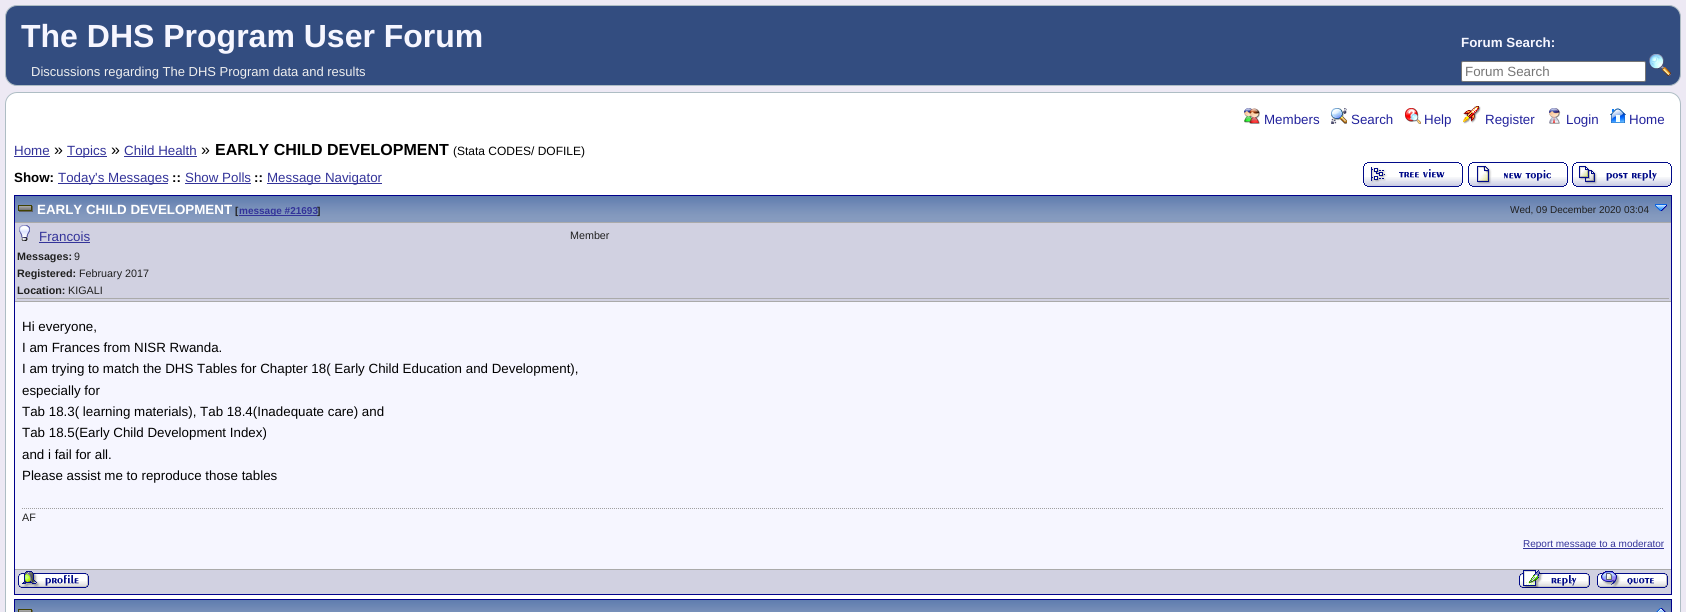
import math
import cairo


def round_path(ctx, x, y, w, h, r):
	ctx.new_sub_path()
	for i, (u, v) in enumerate([(x + w - r, y + h - r), (x + r, y + h - r), (x + r, y + r), (x + w - r, y + r)]):
		ctx.arc(u, v, r, i * math.pi / 2, (i + 1) * math.pi / 2)
	ctx.close_path()

def paste(ctx, path, x, y, w, h):
	ctx.save()
	ctx.set_source_surface(cairo.ImageSurface.create_from_png(path), x, y)
	ctx.rectangle(x, y, w, h)
	ctx.fill()
	ctx.restore()

def draw(ctx):
	ctx.set_source_rgb(0.929, 0.914, 0.957)
	ctx.paint()
	ctx.set_source_rgb(0.2, 0.302, 0.502)
	round_path(ctx, 5.5, 5.5, 1675, 80, 11.5)
	ctx.fill_preserve()
	ctx.set_source_rgb(0.682, 0.741, 0.769)
	ctx.set_line_width(1)
	ctx.stroke()
	ctx.select_font_face('Liberation Sans', cairo.FONT_SLANT_NORMAL, cairo.FONT_WEIGHT_BOLD)
	ctx.set_font_size(32)
	ctx.set_source_rgb(0.961, 0.961, 1)
	ctx.move_to(21, 47)
	ctx.show_text('The DHS Program User Forum')
	ctx.set_font_size(13.35)
	ctx.move_to(1461, 47)
	ctx.show_text('Forum Search:')
	ctx.set_source_rgb(1, 1, 1)
	round_path(ctx, 1461.5, 61.5, 184, 20, 1.5)
	ctx.fill_preserve()
	ctx.set_source_rgb(0.463, 0.463, 0.463)
	ctx.stroke()
	ctx.select_font_face('Liberation Sans')
	ctx.set_source_rgb(0.459, 0.459, 0.459)
	ctx.move_to(1465, 76)
	ctx.show_text('Forum Search')
	paste(ctx, 'media/1.png', 1649, 54, 22, 22)
	ctx.set_font_size(13)
	ctx.set_source_rgb(0.933, 0.933, 0.933)
	ctx.move_to(31, 76)
	ctx.show_text('Discussions regarding The DHS Program data and results')
	ctx.set_source_rgb(1, 1, 1)
	round_path(ctx, 5.5, 92.5, 1675, 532, 11.5)
	ctx.fill_preserve()
	ctx.set_source_rgb(0.682, 0.741, 0.769)
	ctx.stroke()
	paste(ctx, 'media/2.png', 1244, 108, 16, 16)
	ctx.set_font_size(13.35)
	ctx.set_source_rgb(0.133, 0.133, 0.612)
	ctx.move_to(1264, 124)
	ctx.show_text('Members')
	paste(ctx, 'media/3.png', 1331, 108, 16, 16)
	ctx.move_to(1351, 124)
	ctx.show_text('Search')
	paste(ctx, 'media/4.png', 1405, 108, 16, 16)
	ctx.move_to(1424, 124)
	ctx.show_text('Help')
	paste(ctx, 'media/5.png', 1463, 106, 18, 18)
	ctx.move_to(1485, 124)
	ctx.show_text('Register')
	paste(ctx, 'media/6.png', 1549, 108, 12, 16)
	ctx.move_to(1566, 124)
	ctx.show_text('Login')
	paste(ctx, 'media/7.png', 1610, 108, 16, 15)
	ctx.move_to(1629, 124)
	ctx.show_text('Home')
	ctx.set_source_rgb(0.2, 0.2, 0.6)
	ctx.move_to(14, 155)
	ctx.show_text('Home')
	ctx.rectangle(14, 156, 36, 1)
	ctx.fill()
	ctx.set_font_size(16)
	ctx.set_source_rgb(0, 0, 0)
	ctx.move_to(54, 155)
	ctx.show_text('»')
	ctx.set_source_rgb(0.2, 0.2, 0.6)
	ctx.rectangle(67, 156, 40, 1)
	ctx.fill()
	ctx.set_font_size(13.35)
	ctx.move_to(67, 155)
	ctx.show_text('Topics')
	ctx.set_font_size(16)
	ctx.set_source_rgb(0, 0, 0)
	ctx.move_to(111, 155)
	ctx.show_text('»')
	ctx.set_font_size(13.35)
	ctx.set_source_rgb(0.2, 0.2, 0.6)
	ctx.move_to(124, 155)
	ctx.show_text('Child Health')
	ctx.rectangle(124, 156, 73, 1)
	ctx.fill()
	ctx.set_font_size(16)
	ctx.set_source_rgb(0, 0, 0)
	ctx.move_to(201, 155)
	ctx.show_text('»')
	ctx.select_font_face('Liberation Sans', cairo.FONT_SLANT_NORMAL, cairo.FONT_WEIGHT_BOLD)
	ctx.move_to(215, 155)
	ctx.show_text('EARLY CHILD DEVELOPMENT')
	ctx.select_font_face('Liberation Sans')
	ctx.set_font_size(12)
	ctx.move_to(453, 155)
	ctx.show_text('(Stata CODES/ DOFILE)')
	ctx.select_font_face('Liberation Sans', cairo.FONT_SLANT_NORMAL, cairo.FONT_WEIGHT_BOLD)
	ctx.set_font_size(13.35)
	ctx.move_to(14, 182)
	ctx.show_text('Show:')
	ctx.set_source_rgb(0.2, 0.2, 0.6)
	ctx.rectangle(58, 183, 110, 1)
	ctx.fill()
	ctx.select_font_face('Liberation Sans')
	ctx.move_to(58, 182)
	ctx.show_text('Today\'s Messages')
	ctx.select_font_face('Liberation Sans', cairo.FONT_SLANT_NORMAL, cairo.FONT_WEIGHT_BOLD)
	ctx.set_source_rgb(0, 0, 0)
	ctx.move_to(172, 182)
	ctx.show_text('::')
	ctx.select_font_face('Liberation Sans')
	ctx.set_source_rgb(0.2, 0.2, 0.6)
	ctx.move_to(185, 182)
	ctx.show_text('Show Polls')
	ctx.rectangle(185, 183, 66, 1)
	ctx.fill()
	ctx.select_font_face('Liberation Sans', cairo.FONT_SLANT_NORMAL, cairo.FONT_WEIGHT_BOLD)
	ctx.set_source_rgb(0, 0, 0)
	ctx.move_to(254, 182)
	ctx.show_text('::')
	ctx.set_source_rgb(0.2, 0.2, 0.6)
	ctx.rectangle(267, 183, 115, 1)
	ctx.fill()
	ctx.select_font_face('Liberation Sans')
	ctx.move_to(267, 182)
	ctx.show_text('Message Navigator')
	paste(ctx, 'media/8.png', 1363, 162, 100, 25)
	paste(ctx, 'media/9.png', 1468, 162, 100, 25)
	paste(ctx, 'media/10.png', 1572, 162, 100, 25)
	ctx.rectangle(14.5, 195.5, 1657, 399)
	ctx.set_source_rgb(0, 0, 0.545)
	ctx.stroke()
	paste(ctx, 'media/11.png', 15, 196, 1083, 26)
	ctx.set_source_rgb(0.667, 0.667, 0.667)
	ctx.rectangle(15, 222, 1656, 1)
	ctx.fill()
	paste(ctx, 'media/12.png', 18, 205, 15, 7)
	ctx.select_font_face('Liberation Sans', cairo.FONT_SLANT_NORMAL, cairo.FONT_WEIGHT_BOLD)
	ctx.set_source_rgb(1, 1, 1)
	ctx.move_to(37, 214)
	ctx.show_text('EARLY CHILD DEVELOPMENT')
	ctx.set_font_size(10)
	ctx.set_source_rgb(0.125, 0.125, 0.125)
	ctx.move_to(235, 214)
	ctx.show_text('[')
	ctx.set_source_rgb(0.2, 0.2, 0.6)
	ctx.rectangle(239, 215, 78, 1)
	ctx.fill()
	ctx.move_to(239, 214)
	ctx.show_text('message #21693')
	ctx.set_source_rgb(0.125, 0.125, 0.125)
	ctx.move_to(317, 214)
	ctx.show_text(']')
	paste(ctx, 'media/13.png', 1098, 196, 573, 26)
	ctx.select_font_face('Liberation Sans')
	ctx.move_to(1510, 213)
	ctx.show_text('Wed, 09 December 2020 03:04')
	paste(ctx, 'media/14.png', 1655, 204, 12, 7)
	ctx.set_source_rgb(0.82, 0.82, 0.882)
	ctx.rectangle(15, 223, 1656, 78)
	ctx.fill()
	ctx.set_source_rgb(0.667, 0.667, 0.667)
	ctx.rectangle(15, 301, 1656, 1)
	ctx.rectangle(17, 298, 1652, 1)
	ctx.fill()
	paste(ctx, 'media/15.png', 19, 225, 11, 16)
	ctx.set_font_size(13.35)
	ctx.set_source_rgb(0.2, 0.2, 0.6)
	ctx.move_to(39, 241)
	ctx.show_text('Francois')
	ctx.rectangle(39, 242, 51, 1)
	ctx.fill()
	ctx.select_font_face('Liberation Sans', cairo.FONT_SLANT_NORMAL, cairo.FONT_WEIGHT_BOLD)
	ctx.set_font_size(10.75)
	ctx.set_source_rgb(0.125, 0.125, 0.125)
	ctx.move_to(17, 260)
	ctx.show_text('Messages:')
	ctx.select_font_face('Liberation Sans')
	ctx.move_to(74, 260)
	ctx.show_text('9')
	ctx.select_font_face('Liberation Sans', cairo.FONT_SLANT_NORMAL, cairo.FONT_WEIGHT_BOLD)
	ctx.move_to(17, 277)
	ctx.show_text('Registered:')
	ctx.select_font_face('Liberation Sans')
	ctx.move_to(79, 277)
	ctx.show_text('February 2017')
	ctx.select_font_face('Liberation Sans', cairo.FONT_SLANT_NORMAL, cairo.FONT_WEIGHT_BOLD)
	ctx.move_to(17, 294)
	ctx.show_text('Location:')
	ctx.select_font_face('Liberation Sans')
	ctx.move_to(68, 294)
	ctx.show_text('KIGALI')
	ctx.move_to(570, 239)
	ctx.show_text('Member')
	ctx.set_source_rgb(0.961, 0.961, 1)
	ctx.rectangle(15, 302, 1656, 267)
	ctx.fill()
	ctx.set_source_rgb(0.667, 0.667, 0.667)
	ctx.rectangle(15, 569, 1656, 1)
	ctx.fill()
	ctx.set_font_size(13.35)
	ctx.set_source_rgb(0, 0, 0)
	for x, y, s in [
		(22, 331, 'Hi everyone,'),
		(22, 352, 'I am Frances from NISR Rwanda.'),
		(22, 373, 'I am trying to match the DHS Tables for Chapter 18( Early Child Education and Development),'),
		(22, 395, 'especially for'),
		(22, 416, 'Tab 18.3( learning materials), Tab 18.4(Inadequate care) and'),
		(22, 437, 'Tab 18.5(Early Child Development Index)'),
		(22, 459, 'and i fail for all.'),
		(22, 480, 'Please assist me to reproduce those tables'),
	]:
		ctx.move_to(x, y)
		ctx.show_text(s)
	ctx.new_path()
	ctx.move_to(22, 508.5)
	ctx.line_to(1664, 508.5)
	ctx.set_source_rgb(0.627, 0.627, 0.627)
	ctx.set_dash([1, 1])
	ctx.stroke()
	ctx.set_font_size(10.75)
	ctx.set_source_rgb(0.125, 0.125, 0.125)
	ctx.move_to(22, 521)
	ctx.show_text('AF')
	ctx.set_source_rgb(0.2, 0.2, 0.6)
	ctx.rectangle(1523, 548, 141, 1)
	ctx.fill()
	ctx.set_font_size(10)
	ctx.move_to(1523, 547)
	ctx.show_text('Report message to a moderator')
	ctx.set_source_rgb(0.82, 0.82, 0.882)
	ctx.rectangle(15, 570, 1656, 24)
	ctx.fill()
	paste(ctx, 'media/16.png', 18, 571, 71, 17)
	paste(ctx, 'media/17.png', 1519, 570, 71, 18)
	paste(ctx, 'media/18.png', 1597, 571, 71, 17)
	ctx.rectangle(14.5, 599.5, 1657, 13)
	ctx.set_source_rgb(0, 0, 0.545)
	ctx.set_dash([])
	ctx.stroke()
	paste(ctx, 'media/19.png', 15, 600, 1250, 12)
	paste(ctx, 'media/20.png', 18, 609, 15, 3)
	paste(ctx, 'media/21.png', 1265, 600, 406, 12)
	paste(ctx, 'media/22.png', 1656, 608, 10, 4)


surface = cairo.ImageSurface(cairo.FORMAT_RGB24, 1686, 612)
ctx = cairo.Context(surface)
options = cairo.FontOptions()
options.set_hint_metrics(cairo.HINT_METRICS_OFF)
options.set_hint_style(cairo.HINT_STYLE_NONE)
ctx.set_font_options(options)
ctx.set_miter_limit(4)
draw(ctx)
surface.write_to_png('image.png')
